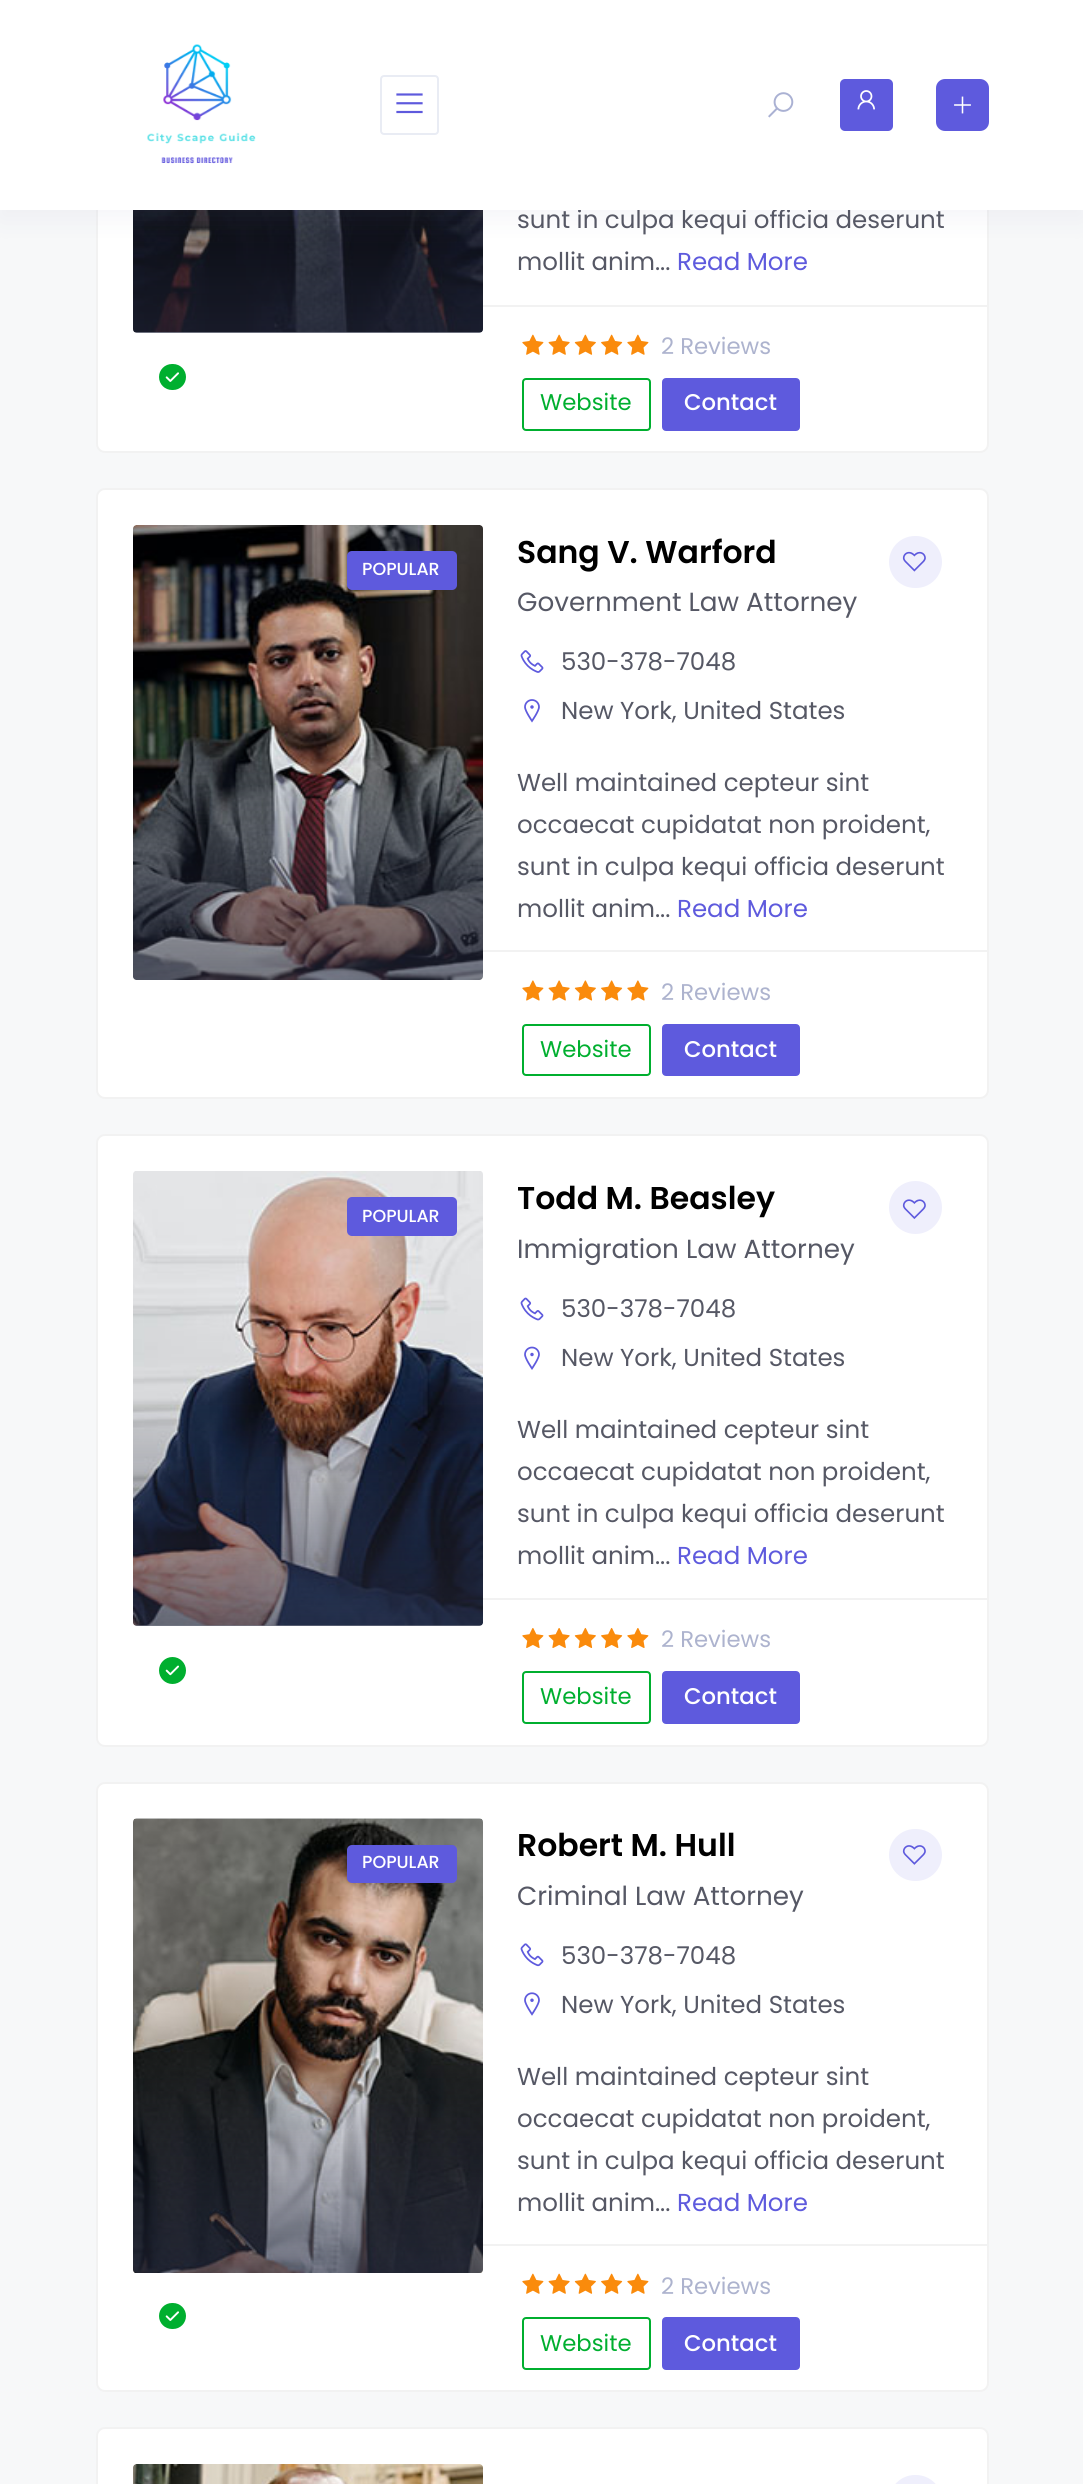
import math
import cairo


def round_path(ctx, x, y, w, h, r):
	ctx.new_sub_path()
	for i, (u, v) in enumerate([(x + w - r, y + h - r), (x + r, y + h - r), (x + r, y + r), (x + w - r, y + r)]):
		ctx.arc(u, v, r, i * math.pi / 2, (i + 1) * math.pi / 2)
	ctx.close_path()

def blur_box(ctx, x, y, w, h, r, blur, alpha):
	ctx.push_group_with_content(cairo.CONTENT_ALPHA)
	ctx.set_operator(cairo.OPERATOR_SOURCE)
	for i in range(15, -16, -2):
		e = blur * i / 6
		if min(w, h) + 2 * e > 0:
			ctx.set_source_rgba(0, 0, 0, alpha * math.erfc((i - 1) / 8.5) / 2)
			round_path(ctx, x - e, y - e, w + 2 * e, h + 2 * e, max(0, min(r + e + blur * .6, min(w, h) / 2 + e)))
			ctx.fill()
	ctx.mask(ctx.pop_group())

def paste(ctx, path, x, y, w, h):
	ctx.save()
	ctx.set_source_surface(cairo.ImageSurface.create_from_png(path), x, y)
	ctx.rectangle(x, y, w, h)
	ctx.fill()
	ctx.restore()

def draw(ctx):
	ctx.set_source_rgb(0.965, 0.969, 0.973)
	ctx.paint()
	ctx.set_source_rgb(1, 1, 1)
	round_path(ctx, 97, -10, 891, 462, 8)
	ctx.fill_preserve()
	ctx.set_source_rgb(0.949, 0.949, 0.949)
	ctx.stroke()
	ctx.set_source_rgb(0.965, 0.969, 0.973)
	round_path(ctx, 133, -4, 350, 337, 4)
	ctx.fill()
	paste(ctx, 'media/6.png', 133, 210, 350, 123)
	gradient = cairo.LinearGradient(308, 333, 308, -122)
	gradient.add_color_stop_rgba(0, 0.153, 0.169, 0.255, 0.6)
	gradient.add_color_stop_rgba(0.5, 0.153, 0.169, 0.255, 0)
	ctx.set_source(gradient)
	round_path(ctx, 133, -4, 350, 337, 4)
	ctx.fill()
	ctx.set_source_rgb(0.573, 0.6, 0.722)
	blur_box(ctx, 0, 9, 1083, 210, 0, 13, 0.1)
	ctx.select_font_face('Poppins')
	ctx.set_font_size(24.5)
	ctx.set_source_rgb(0.337, 0.345, 0.396)
	ctx.move_to(517, 228)
	ctx.show_text('sunt in culpa kequi officia deserunt')
	ctx.set_source_rgb(1, 1, 1)
	ctx.rectangle(0, 0, 1083, 210)
	ctx.fill()
	paste(ctx, 'media/1.png', 147, 44, 109, 120)
	round_path(ctx, 381, 76, 57, 58, 3)
	ctx.set_source_rgb(0.914, 0.922, 0.957)
	ctx.stroke()
	paste(ctx, 'media/2.png', 396, 93, 27, 21)
	paste(ctx, 'media/3.png', 768, 92, 26, 26)
	ctx.set_source_rgb(0.369, 0.353, 0.867)
	round_path(ctx, 840, 79, 53, 52, 5)
	ctx.fill()
	paste(ctx, 'media/4.png', 857, 90, 18, 20)
	round_path(ctx, 937, 80, 51, 50, 8)
	ctx.fill_preserve()
	ctx.stroke()
	paste(ctx, 'media/5.png', 954, 96, 17, 18)
	ctx.set_source_rgb(0, 0.686, 0.184)
	round_path(ctx, 159, 364, 27, 26, 13)
	ctx.fill()
	paste(ctx, 'media/7.png', 165, 372, 14, 10)
	ctx.set_source_rgb(0.337, 0.345, 0.396)
	ctx.move_to(517, 270)
	ctx.show_text('mollit anim...')
	ctx.set_source_rgb(0.369, 0.353, 0.867)
	ctx.move_to(677, 270)
	ctx.show_text('Read More')
	ctx.set_source_rgb(0.949, 0.949, 0.949)
	ctx.rectangle(483, 305, 504, 2)
	ctx.fill()
	paste(ctx, 'media/8.png', 522, 334, 22, 21)
	paste(ctx, 'media/9.png', 548, 334, 22, 21)
	paste(ctx, 'media/10.png', 574, 334, 22, 21)
	paste(ctx, 'media/11.png', 601, 334, 22, 21)
	paste(ctx, 'media/8.png', 627, 334, 22, 21)
	ctx.set_font_size(22.75)
	ctx.set_source_rgb(0.678, 0.702, 0.808)
	ctx.move_to(661, 354)
	ctx.show_text('2 Reviews')
	round_path(ctx, 523, 379, 127, 51, 3)
	ctx.set_source_rgb(0, 0.686, 0.184)
	ctx.stroke()
	ctx.move_to(540, 410)
	ctx.show_text('Website')
	ctx.set_source_rgb(0.369, 0.353, 0.867)
	round_path(ctx, 663, 379, 136, 51, 3)
	ctx.fill_preserve()
	ctx.stroke()
	ctx.select_font_face('Poppins Medium')
	ctx.set_source_rgb(1, 1, 1)
	ctx.move_to(684, 410)
	ctx.show_text('Contact')
	round_path(ctx, 97, 489, 891, 609, 8)
	ctx.fill_preserve()
	ctx.set_source_rgb(0.949, 0.949, 0.949)
	ctx.stroke()
	paste(ctx, 'media/12.png', 133, 525, 350, 455)
	gradient = cairo.LinearGradient(308, 980, 308, 525)
	gradient.add_color_stop_rgba(0, 0.153, 0.169, 0.255, 0.6)
	gradient.add_color_stop_rgba(0.5, 0.153, 0.169, 0.255, 0)
	ctx.set_source(gradient)
	round_path(ctx, 133, 525, 350, 455, 4)
	ctx.fill()
	ctx.set_source_rgb(0.369, 0.353, 0.867)
	round_path(ctx, 347, 551, 110, 39, 5)
	ctx.fill()
	ctx.set_font_size(17.5)
	ctx.set_source_rgb(1, 1, 1)
	ctx.move_to(362, 575)
	ctx.show_text('POPULAR')
	ctx.select_font_face('Poppins SemiBold')
	ctx.set_font_size(31.5)
	ctx.set_source_rgb(0, 0, 0)
	ctx.move_to(517, 563)
	ctx.show_text('Sang V. Warford')
	ctx.select_font_face('Poppins')
	ctx.set_font_size(26.25)
	ctx.set_source_rgb(0.337, 0.345, 0.396)
	ctx.move_to(517, 611)
	ctx.show_text('Government Law Attorney')
	ctx.set_source_rgb(0.937, 0.937, 0.988)
	round_path(ctx, 889, 536, 53, 52, 26)
	ctx.fill()
	paste(ctx, 'media/13.png', 902, 551, 24, 21)
	paste(ctx, 'media/14.png', 520, 650, 24, 23)
	ctx.set_font_size(24.5)
	ctx.set_source_rgb(0.337, 0.345, 0.396)
	ctx.move_to(561, 670)
	ctx.show_text('530-378-7048')
	paste(ctx, 'media/15.png', 524, 699, 16, 24)
	for x, y, s in [
		(561, 719, 'New York, United States'),
		(517, 791, 'Well maintained cepteur sint'),
		(517, 833, 'occaecat cupidatat non proident,'),
		(517, 875, 'sunt in culpa kequi officia deserunt'),
		(517, 917, 'mollit anim...'),
	]:
		ctx.move_to(x, y)
		ctx.show_text(s)
	ctx.set_source_rgb(0.369, 0.353, 0.867)
	ctx.move_to(677, 917)
	ctx.show_text('Read More')
	ctx.set_source_rgb(0.949, 0.949, 0.949)
	ctx.rectangle(483, 950, 504, 2)
	ctx.fill()
	paste(ctx, 'media/16.png', 522, 980, 22, 21)
	paste(ctx, 'media/17.png', 548, 980, 22, 21)
	paste(ctx, 'media/18.png', 574, 980, 22, 21)
	paste(ctx, 'media/19.png', 601, 980, 22, 21)
	paste(ctx, 'media/16.png', 627, 980, 22, 21)
	ctx.set_font_size(22.75)
	ctx.set_source_rgb(0.678, 0.702, 0.808)
	ctx.move_to(661, 1000)
	ctx.show_text('2 Reviews')
	round_path(ctx, 523, 1025, 127, 50, 3)
	ctx.set_source_rgb(0, 0.686, 0.184)
	ctx.stroke()
	ctx.move_to(540, 1057)
	ctx.show_text('Website')
	ctx.set_source_rgb(0.369, 0.353, 0.867)
	round_path(ctx, 663, 1025, 136, 50, 3)
	ctx.fill_preserve()
	ctx.stroke()
	ctx.select_font_face('Poppins Medium')
	ctx.set_source_rgb(1, 1, 1)
	ctx.move_to(684, 1057)
	ctx.show_text('Contact')
	round_path(ctx, 97, 1135, 891, 611, 8)
	ctx.fill_preserve()
	ctx.set_source_rgb(0.949, 0.949, 0.949)
	ctx.stroke()
	ctx.set_source_rgb(0.965, 0.969, 0.973)
	round_path(ctx, 133, 1171, 350, 455, 4)
	ctx.fill()
	paste(ctx, 'media/20.png', 133, 1171, 350, 455)
	gradient = cairo.LinearGradient(308, 1626, 308, 1171)
	gradient.add_color_stop_rgba(0, 0.153, 0.169, 0.255, 0.6)
	gradient.add_color_stop_rgba(0.5, 0.153, 0.169, 0.255, 0)
	ctx.set_source(gradient)
	round_path(ctx, 133, 1171, 350, 455, 4)
	ctx.fill()
	ctx.set_source_rgb(0.369, 0.353, 0.867)
	round_path(ctx, 347, 1197, 110, 39, 5)
	ctx.fill()
	ctx.set_font_size(17.5)
	ctx.set_source_rgb(1, 1, 1)
	ctx.move_to(362, 1222)
	ctx.show_text('POPULAR')
	ctx.set_source_rgb(0, 0.686, 0.184)
	ctx.new_path()
	ctx.arc(172.5, 1670.5, 13.5, 0, 2 * math.pi)
	ctx.fill()
	paste(ctx, 'media/21.png', 165, 1665, 14, 11)
	ctx.select_font_face('Poppins SemiBold')
	ctx.set_font_size(31.5)
	ctx.set_source_rgb(0, 0, 0)
	ctx.move_to(517, 1209)
	ctx.show_text('Todd M. Beasley')
	ctx.select_font_face('Poppins')
	ctx.set_font_size(26.25)
	ctx.set_source_rgb(0.337, 0.345, 0.396)
	ctx.move_to(517, 1258)
	ctx.show_text('Immigration Law Attorney')
	ctx.set_source_rgb(0.937, 0.937, 0.988)
	ctx.new_path()
	ctx.arc(915.5, 1207.5, 26.5, 0, 2 * math.pi)
	ctx.fill()
	paste(ctx, 'media/22.png', 902, 1199, 24, 20)
	paste(ctx, 'media/23.png', 520, 1297, 24, 24)
	ctx.set_font_size(24.5)
	ctx.set_source_rgb(0.337, 0.345, 0.396)
	ctx.move_to(561, 1317)
	ctx.show_text('530-378-7048')
	paste(ctx, 'media/24.png', 524, 1346, 16, 24)
	for x, y, s in [
		(561, 1366, 'New York, United States'),
		(517, 1438, 'Well maintained cepteur sint'),
		(517, 1480, 'occaecat cupidatat non proident,'),
		(517, 1522, 'sunt in culpa kequi officia deserunt'),
		(517, 1564, 'mollit anim...'),
	]:
		ctx.move_to(x, y)
		ctx.show_text(s)
	ctx.set_source_rgb(0.369, 0.353, 0.867)
	ctx.move_to(677, 1564)
	ctx.show_text('Read More')
	ctx.set_source_rgb(0.949, 0.949, 0.949)
	ctx.rectangle(483, 1598, 504, 2)
	ctx.fill()
	paste(ctx, 'media/25.png', 522, 1628, 22, 20)
	paste(ctx, 'media/26.png', 548, 1628, 22, 20)
	paste(ctx, 'media/27.png', 574, 1627, 22, 21)
	paste(ctx, 'media/28.png', 601, 1627, 22, 21)
	paste(ctx, 'media/25.png', 627, 1628, 22, 20)
	ctx.set_font_size(22.75)
	ctx.set_source_rgb(0.678, 0.702, 0.808)
	ctx.move_to(661, 1647)
	ctx.show_text('2 Reviews')
	round_path(ctx, 523, 1672, 127, 51, 3)
	ctx.set_source_rgb(0, 0.686, 0.184)
	ctx.stroke()
	ctx.move_to(540, 1704)
	ctx.show_text('Website')
	ctx.set_source_rgb(0.369, 0.353, 0.867)
	round_path(ctx, 663, 1672, 136, 51, 3)
	ctx.fill_preserve()
	ctx.stroke()
	ctx.select_font_face('Poppins Medium')
	ctx.set_source_rgb(1, 1, 1)
	ctx.move_to(684, 1704)
	ctx.show_text('Contact')
	round_path(ctx, 97, 1783, 891, 608, 8)
	ctx.fill_preserve()
	ctx.set_source_rgb(0.949, 0.949, 0.949)
	ctx.stroke()
	ctx.set_source_rgb(0.965, 0.969, 0.973)
	round_path(ctx, 133, 1818, 350, 455, 4)
	ctx.fill()
	paste(ctx, 'media/29.png', 133, 1818, 350, 455)
	gradient = cairo.LinearGradient(308, 2273, 308, 1818)
	gradient.add_color_stop_rgba(0, 0.153, 0.169, 0.255, 0.6)
	gradient.add_color_stop_rgba(0.5, 0.153, 0.169, 0.255, 0)
	ctx.set_source(gradient)
	round_path(ctx, 133, 1818, 350, 455, 4)
	ctx.fill()
	ctx.set_source_rgb(0.369, 0.353, 0.867)
	round_path(ctx, 347, 1845, 110, 38, 5)
	ctx.fill()
	ctx.set_font_size(17.5)
	ctx.set_source_rgb(1, 1, 1)
	ctx.move_to(362, 1868)
	ctx.show_text('POPULAR')
	ctx.set_source_rgb(0, 0.686, 0.184)
	round_path(ctx, 159, 2303, 27, 26, 13)
	ctx.fill()
	paste(ctx, 'media/7.png', 165, 2311, 14, 10)
	ctx.select_font_face('Poppins SemiBold')
	ctx.set_font_size(31.5)
	ctx.set_source_rgb(0, 0, 0)
	ctx.move_to(517, 1856)
	ctx.show_text('Robert M. Hull')
	ctx.select_font_face('Poppins')
	ctx.set_font_size(26.25)
	ctx.set_source_rgb(0.337, 0.345, 0.396)
	ctx.move_to(517, 1905)
	ctx.show_text('Criminal Law Attorney')
	ctx.set_source_rgb(0.937, 0.937, 0.988)
	round_path(ctx, 889, 1829, 53, 52, 26)
	ctx.fill()
	paste(ctx, 'media/30.png', 902, 1845, 24, 20)
	paste(ctx, 'media/31.png', 520, 1943, 24, 24)
	ctx.set_font_size(24.5)
	ctx.set_source_rgb(0.337, 0.345, 0.396)
	ctx.move_to(561, 1964)
	ctx.show_text('530-378-7048')
	paste(ctx, 'media/32.png', 524, 1992, 16, 24)
	for x, y, s in [
		(561, 2013, 'New York, United States'),
		(517, 2085, 'Well maintained cepteur sint'),
		(517, 2127, 'occaecat cupidatat non proident,'),
		(517, 2169, 'sunt in culpa kequi officia deserunt'),
		(517, 2211, 'mollit anim...'),
	]:
		ctx.move_to(x, y)
		ctx.show_text(s)
	ctx.set_source_rgb(0.369, 0.353, 0.867)
	ctx.move_to(677, 2211)
	ctx.show_text('Read More')
	ctx.set_source_rgb(0.949, 0.949, 0.949)
	ctx.rectangle(483, 2244, 504, 2)
	ctx.fill()
	paste(ctx, 'media/8.png', 522, 2273, 22, 21)
	paste(ctx, 'media/9.png', 548, 2273, 22, 21)
	paste(ctx, 'media/10.png', 574, 2273, 22, 21)
	paste(ctx, 'media/11.png', 601, 2273, 22, 21)
	paste(ctx, 'media/8.png', 627, 2273, 22, 21)
	ctx.set_font_size(22.75)
	ctx.set_source_rgb(0.678, 0.702, 0.808)
	ctx.move_to(661, 2294)
	ctx.show_text('2 Reviews')
	round_path(ctx, 523, 2318, 127, 51, 3)
	ctx.set_source_rgb(0, 0.686, 0.184)
	ctx.stroke()
	ctx.move_to(540, 2351)
	ctx.show_text('Website')
	ctx.set_source_rgb(0.369, 0.353, 0.867)
	round_path(ctx, 663, 2318, 136, 51, 3)
	ctx.fill_preserve()
	ctx.stroke()
	ctx.select_font_face('Poppins Medium')
	ctx.set_source_rgb(1, 1, 1)
	ctx.move_to(684, 2351)
	ctx.show_text('Contact')
	round_path(ctx, 97, 2428, 891, 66, 8)
	ctx.fill_preserve()
	ctx.set_source_rgb(0.949, 0.949, 0.949)
	ctx.stroke()
	paste(ctx, 'media/33.png', 133, 2464, 350, 20)
	ctx.set_source_rgb(0.937, 0.937, 0.988)
	round_path(ctx, 889, 2475, 53, 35, 26)
	ctx.fill()


surface = cairo.ImageSurface(cairo.FORMAT_RGB24, 1083, 2484)
ctx = cairo.Context(surface)
options = cairo.FontOptions()
options.set_hint_metrics(cairo.HINT_METRICS_OFF)
options.set_hint_style(cairo.HINT_STYLE_NONE)
ctx.set_font_options(options)
ctx.set_miter_limit(4)
draw(ctx)
surface.write_to_png('image.png')
